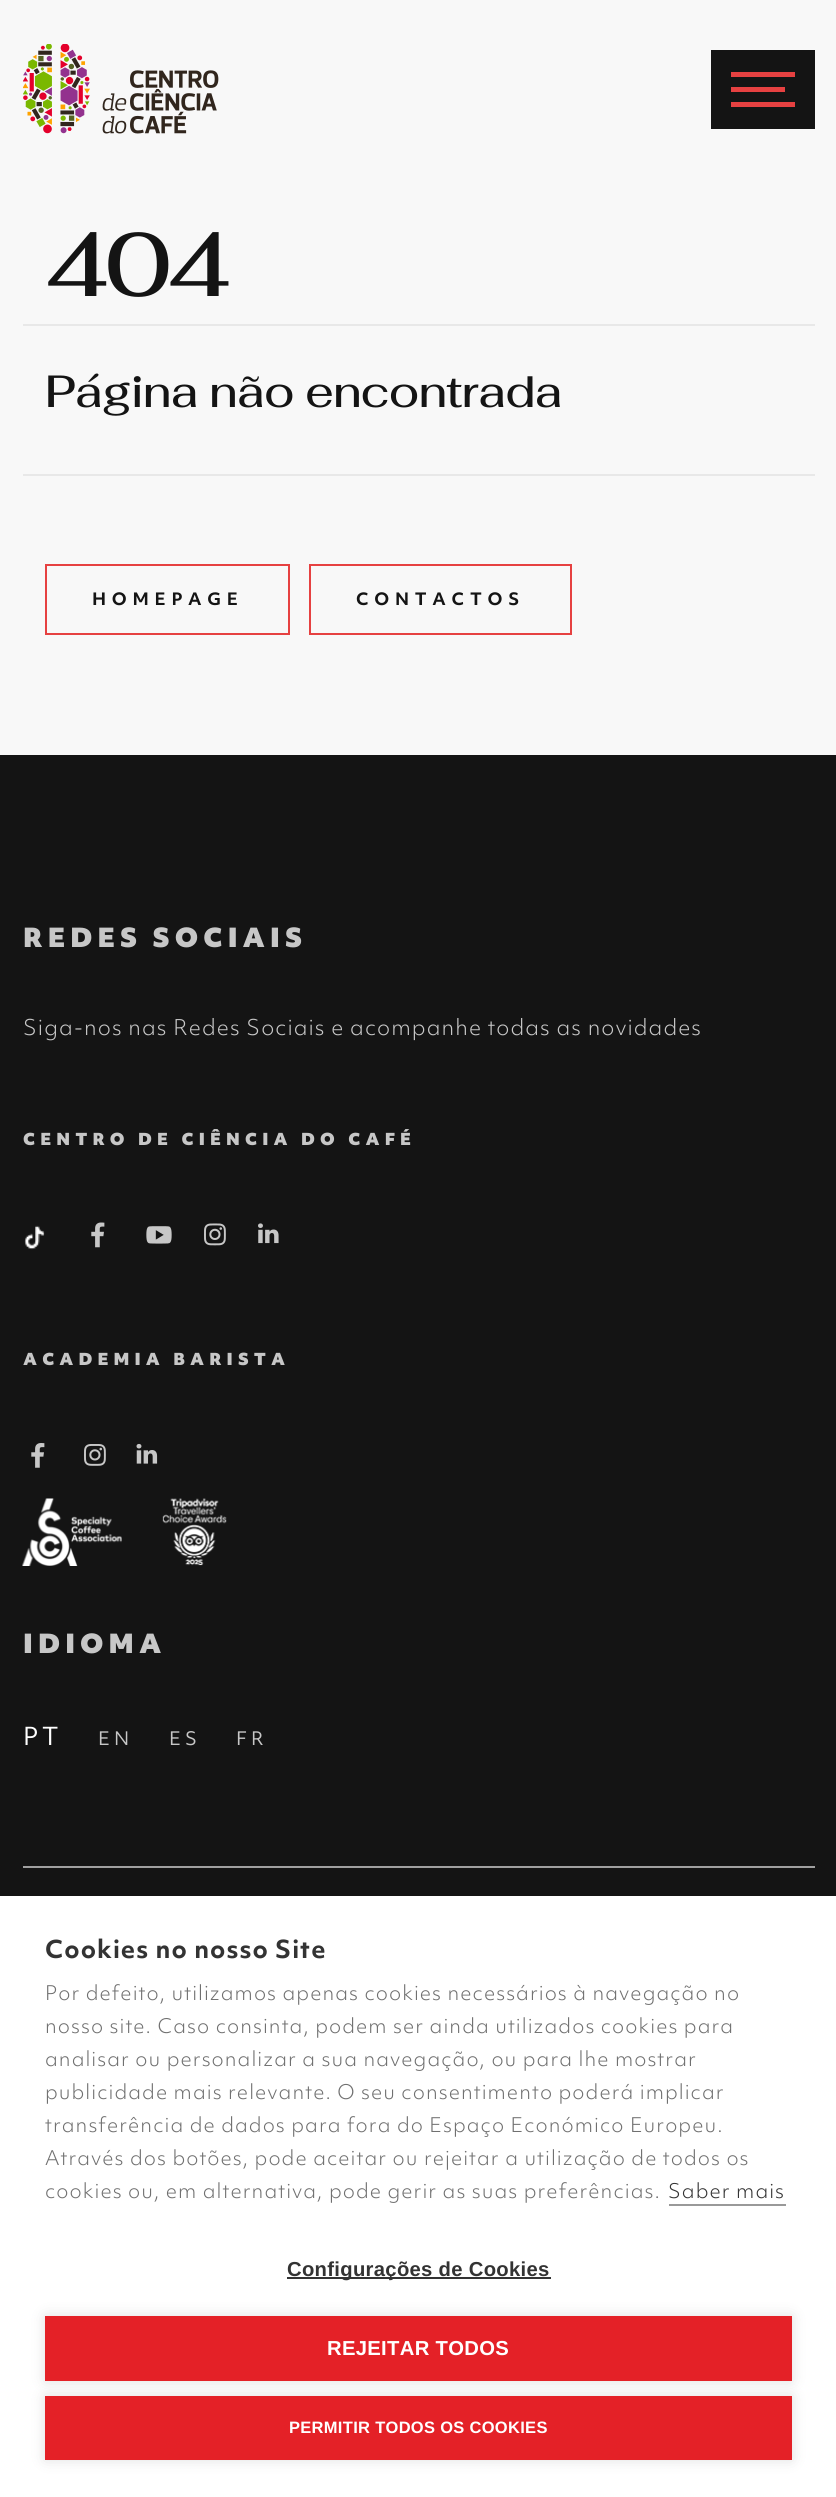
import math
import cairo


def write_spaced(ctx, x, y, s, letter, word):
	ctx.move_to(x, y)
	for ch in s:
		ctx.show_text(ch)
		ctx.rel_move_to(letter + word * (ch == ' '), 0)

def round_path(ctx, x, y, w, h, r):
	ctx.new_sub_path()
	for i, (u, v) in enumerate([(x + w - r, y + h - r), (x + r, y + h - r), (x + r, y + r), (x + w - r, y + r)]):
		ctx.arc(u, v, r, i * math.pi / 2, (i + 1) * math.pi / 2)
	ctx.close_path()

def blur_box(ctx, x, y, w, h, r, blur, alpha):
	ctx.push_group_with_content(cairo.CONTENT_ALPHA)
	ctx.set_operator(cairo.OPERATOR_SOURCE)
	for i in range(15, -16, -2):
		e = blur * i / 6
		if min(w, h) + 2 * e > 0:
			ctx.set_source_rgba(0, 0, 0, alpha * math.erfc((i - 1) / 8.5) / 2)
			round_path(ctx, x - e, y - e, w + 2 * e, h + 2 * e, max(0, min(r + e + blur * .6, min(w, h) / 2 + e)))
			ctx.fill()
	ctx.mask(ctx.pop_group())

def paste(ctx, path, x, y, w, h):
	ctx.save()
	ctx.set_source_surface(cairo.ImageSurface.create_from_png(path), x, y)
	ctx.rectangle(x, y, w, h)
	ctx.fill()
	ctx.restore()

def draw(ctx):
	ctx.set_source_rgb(0.969, 0.969, 0.969)
	ctx.paint()
	paste(ctx, 'media/1.png', 23, 44, 196, 90)
	ctx.set_source_rgb(0.082, 0.082, 0.082)
	ctx.rectangle(711, 50, 104, 79)
	ctx.fill()
	ctx.set_source_rgb(0.902, 0.255, 0.255)
	ctx.rectangle(731, 72, 64, 5)
	ctx.rectangle(731, 87, 54, 5)
	ctx.rectangle(731, 102, 64, 5)
	ctx.fill()
	ctx.select_font_face('Fahkwang Medium')
	ctx.set_font_size(90)
	ctx.set_source_rgb(0.082, 0.082, 0.082)
	write_spaced(ctx, 45, 296, '404', -3, 0)
	ctx.set_source_rgb(0.91, 0.91, 0.91)
	ctx.rectangle(23, 324, 792, 2)
	ctx.fill()
	ctx.set_font_size(45)
	ctx.set_source_rgb(0.082, 0.082, 0.082)
	write_spaced(ctx, 45, 407, 'Página não encontrada', -0.9, 0)
	ctx.set_source_rgb(0.91, 0.91, 0.91)
	ctx.rectangle(23, 474, 792, 2)
	ctx.fill()
	ctx.rectangle(46, 565, 243, 69)
	ctx.set_source_rgb(0.902, 0.255, 0.255)
	ctx.stroke()
	ctx.select_font_face('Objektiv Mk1', cairo.FONT_SLANT_NORMAL, cairo.FONT_WEIGHT_BOLD)
	ctx.set_font_size(16.5)
	ctx.set_source_rgb(0.082, 0.082, 0.082)
	write_spaced(ctx, 92, 605, 'HOMEPAGE', 5.75, 0)
	ctx.rectangle(310, 565, 261, 69)
	ctx.set_source_rgb(0.902, 0.255, 0.255)
	ctx.stroke()
	ctx.set_source_rgb(0.082, 0.082, 0.082)
	write_spaced(ctx, 356, 605, 'CONTACTOS', 5.75, 0)
	ctx.rectangle(0, 755, 836, 1141)
	ctx.fill()
	ctx.select_font_face('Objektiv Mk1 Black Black')
	ctx.set_font_size(25.5)
	ctx.set_source_rgb(0.78, 0.78, 0.78)
	write_spaced(ctx, 23, 947, 'REDES SOCIAIS', 5.1, 0)
	ctx.select_font_face('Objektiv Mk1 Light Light')
	ctx.set_font_size(21)
	write_spaced(ctx, 23, 1035, 'Siga-nos nas Redes Sociais e acompanhe todas as novidades', 1.05, 0)
	ctx.select_font_face('Objektiv Mk1 Black Black')
	ctx.set_font_size(16)
	write_spaced(ctx, 23, 1145, 'CENTRO DE CIÊNCIA DO CAFÉ', 5.1, 0)
	paste(ctx, 'media/2.png', 24, 1225, 21, 25)
	paste(ctx, 'media/3.png', 91, 1222, 14, 26)
	paste(ctx, 'media/4.png', 146, 1226, 26, 18)
	paste(ctx, 'media/5.png', 204, 1223, 22, 23)
	paste(ctx, 'media/6.png', 258, 1223, 21, 21)
	write_spaced(ctx, 23, 1365, 'ACADEMIA BARISTA', 5.1, 0)
	paste(ctx, 'media/7.png', 31, 1443, 14, 25)
	paste(ctx, 'media/8.png', 84, 1444, 22, 22)
	paste(ctx, 'media/9.png', 136, 1443, 22, 21)
	paste(ctx, 'media/10.png', 22, 1498, 100, 68)
	paste(ctx, 'media/11.png', 162, 1498, 65, 68)
	ctx.set_font_size(25.5)
	write_spaced(ctx, 23, 1653, 'IDIOMA', 5.1, 0)
	ctx.select_font_face('Objektiv Mk1')
	ctx.set_font_size(24)
	ctx.set_source_rgb(1, 1, 1)
	write_spaced(ctx, 23, 1745, 'PT', 4, 0)
	ctx.set_font_size(18)
	ctx.set_source_rgb(0.78, 0.78, 0.78)
	for x, y, s in [
		(98, 1745, 'EN'),
		(169, 1745, 'ES'),
		(236, 1745, 'FR'),
	]:
		write_spaced(ctx, x, y, s, 4, 0)
	ctx.set_source_rgb(0.627, 0.627, 0.627)
	ctx.rectangle(23, 1866, 792, 2)
	ctx.fill()
	ctx.set_source_rgb(1, 1, 1)
	ctx.rectangle(0, 1896, 836, 601)
	ctx.fill()
	ctx.select_font_face('Objektiv Mk1', cairo.FONT_SLANT_NORMAL, cairo.FONT_WEIGHT_BOLD)
	ctx.set_font_size(24)
	ctx.set_source_rgb(0.2, 0.2, 0.2)
	write_spaced(ctx, 45, 1958, 'Cookies no nosso Site', 1.05, 0)
	ctx.select_font_face('Objektiv Mk1 Light Light')
	ctx.set_font_size(19.5)
	ctx.set_source_rgb(0.439, 0.439, 0.439)
	for x, y, s in [
		(45, 2000, 'Por defeito, utilizamos apenas cookies necessários à navegação no'),
		(45, 2033, 'nosso site. Caso consinta, podem ser ainda utilizados cookies para'),
		(45, 2066, 'analisar ou personalizar a sua navegação, ou para lhe mostrar'),
		(45, 2099, 'publicidade mais relevante. O seu consentimento poderá implicar'),
		(45, 2132, 'transferência de dados para fora do Espaço Económico Europeu.'),
		(45, 2165, 'Através dos botões, pode aceitar ou rejeitar a utilização de todos os'),
		(45, 2198, 'cookies ou, em alternativa, pode gerir as suas preferências.'),
	]:
		write_spaced(ctx, x, y, s, 1.05, 0)
	ctx.set_source_rgb(0.2, 0.2, 0.2)
	write_spaced(ctx, 668, 2198, 'Saber mais', 1.05, 0)
	ctx.set_source_rgb(0.6, 0.6, 0.6)
	ctx.rectangle(669, 2204, 117, 2)
	ctx.fill()
	ctx.set_source_rgb(0.2, 0.2, 0.2)
	ctx.rectangle(287, 2277, 264, 2)
	ctx.fill()
	ctx.select_font_face('Liberation Sans', cairo.FONT_SLANT_NORMAL, cairo.FONT_WEIGHT_BOLD)
	ctx.set_font_size(20.25)
	write_spaced(ctx, 287, 2276, 'Configurações de Cookies', 0.3, 0)
	ctx.set_source_rgb(0, 0, 0)
	blur_box(ctx, 45, 2316, 747, 65, 0, 7.5, 0.12)
	ctx.set_source_rgb(0.894, 0.129, 0.153)
	ctx.rectangle(45, 2316, 747, 65)
	ctx.fill()
	ctx.set_source_rgb(1, 1, 1)
	write_spaced(ctx, 327, 2355, 'REJEITAR TODOS', 0.3, 0)
	ctx.set_source_rgb(0, 0, 0)
	blur_box(ctx, 45, 2396, 747, 64, 0, 7.5, 0.12)
	ctx.set_source_rgb(0.894, 0.129, 0.153)
	ctx.rectangle(45, 2396, 747, 64)
	ctx.fill()
	ctx.set_font_size(16.5)
	ctx.set_source_rgb(1, 1, 1)
	write_spaced(ctx, 289, 2433, 'PERMITIR TODOS OS COOKIES', 0.3, 0)


surface = cairo.ImageSurface(cairo.FORMAT_RGB24, 836, 2497)
ctx = cairo.Context(surface)
options = cairo.FontOptions()
options.set_hint_metrics(cairo.HINT_METRICS_OFF)
options.set_hint_style(cairo.HINT_STYLE_NONE)
ctx.set_font_options(options)
ctx.set_miter_limit(4)
draw(ctx)
surface.write_to_png('image.png')
